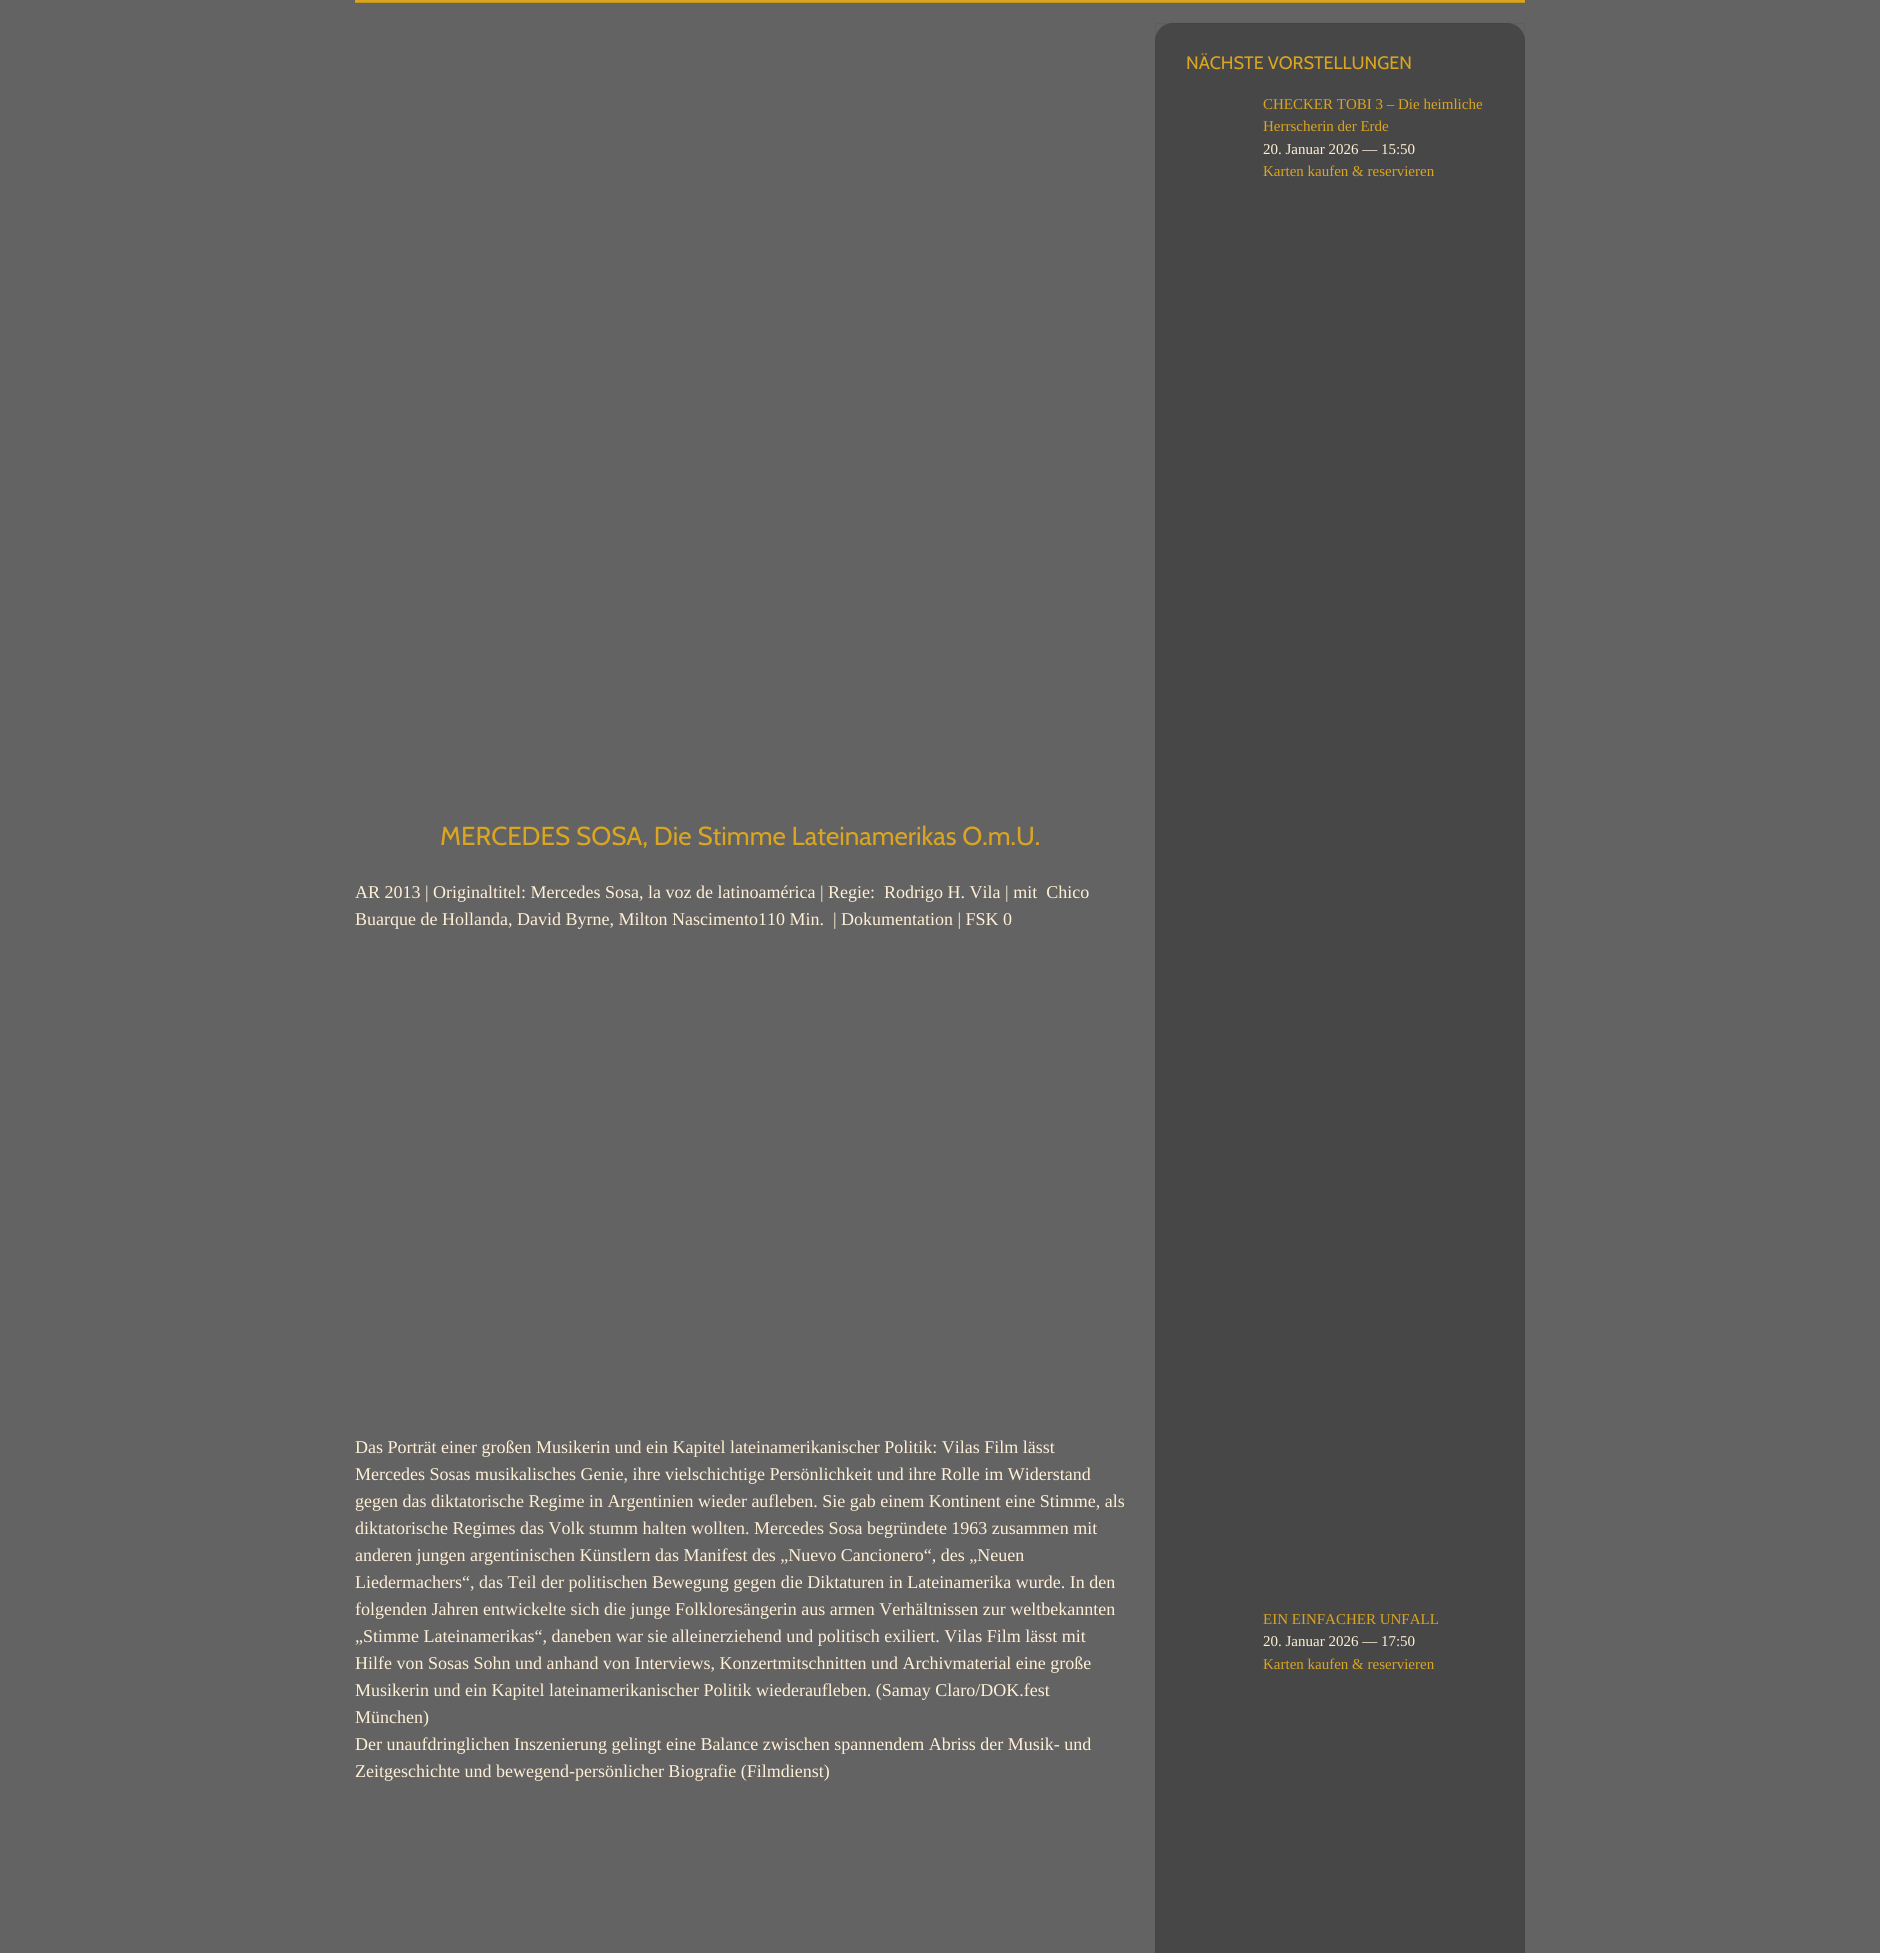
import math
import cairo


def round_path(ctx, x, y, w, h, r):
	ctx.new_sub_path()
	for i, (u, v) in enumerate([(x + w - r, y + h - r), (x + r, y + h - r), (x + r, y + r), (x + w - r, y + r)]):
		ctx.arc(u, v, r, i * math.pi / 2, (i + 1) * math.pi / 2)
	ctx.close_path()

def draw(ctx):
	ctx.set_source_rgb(0.388, 0.388, 0.388)
	ctx.paint()
	ctx.set_source_rgb(0.855, 0.647, 0.125)
	ctx.rectangle(355, 0, 1170, 2)
	ctx.fill()
	ctx.set_source_rgb(0.769, 0.584, 0.114)
	ctx.rectangle(355, 2, 1170, 1)
	ctx.fill()
	ctx.select_font_face('Cabin')
	ctx.set_font_size(26)
	ctx.set_source_rgb(0.855, 0.647, 0.125)
	ctx.move_to(440, 845)
	ctx.show_text('MERCEDES SOSA, Die Stimme Lateinamerikas O.m.U.')
	ctx.select_font_face('Liberation Serif')
	ctx.set_font_size(18)
	ctx.set_source_rgb(1, 0.937, 0.835)
	for x, y, s in [
		(355, 898, 'AR 2013 | Originaltitel: Mercedes Sosa, la voz de latinoamérica | Regie:  Rodrigo H. Vila | mit  Chico'),
		(355, 925, 'Buarque de Hollanda, David Byrne, Milton Nascimento110 Min.  | Dokumentation | FSK 0'),
		(355, 1453, 'Das Porträt einer großen Musikerin und ein Kapitel lateinamerikanischer Politik: Vilas Film lässt'),
		(355, 1480, 'Mercedes Sosas musikalisches Genie, ihre vielschichtige Persönlichkeit und ihre Rolle im Widerstand'),
		(355, 1507, 'gegen das diktatorische Regime in Argentinien wieder aufleben. Sie gab einem Kontinent eine Stimme, als'),
		(355, 1534, 'diktatorische Regimes das Volk stumm halten wollten. Mercedes Sosa begründete 1963 zusammen mit'),
		(355, 1561, 'anderen jungen argentinischen Künstlern das Manifest des „Nuevo Cancionero“, des „Neuen'),
		(355, 1588, 'Liedermachers“, das Teil der politischen Bewegung gegen die Diktaturen in Lateinamerika wurde. In den'),
		(355, 1615, 'folgenden Jahren entwickelte sich die junge Folkloresängerin aus armen Verhältnissen zur weltbekannten'),
		(355, 1642, '„Stimme Lateinamerikas“, daneben war sie alleinerziehend und politisch exiliert. Vilas Film lässt mit'),
		(355, 1669, 'Hilfe von Sosas Sohn und anhand von Interviews, Konzertmitschnitten und Archivmaterial eine große'),
		(355, 1696, 'Musikerin und ein Kapitel lateinamerikanischer Politik wiederaufleben. (Samay Claro/DOK.fest'),
		(355, 1723, 'München)'),
		(355, 1750, 'Der unaufdringlichen Inszenierung gelingt eine Balance zwischen spannendem Abriss der Musik- und'),
		(355, 1777, 'Zeitgeschichte und bewegend-persönlicher Biografie (Filmdienst)'),
	]:
		ctx.move_to(x, y)
		ctx.show_text(s)
	ctx.set_source_rgb(0.278, 0.278, 0.278)
	round_path(ctx, 1155, 23, 370, 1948, 18)
	ctx.fill()
	ctx.rectangle(1155.5, 23.5, 369, 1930)
	ctx.set_source_rgba(0, 0, 0, 0.05)
	ctx.set_line_width(1)
	ctx.stroke()
	ctx.select_font_face('Cabin')
	ctx.set_source_rgb(0.855, 0.647, 0.125)
	ctx.move_to(1186, 69)
	ctx.show_text('NÄCHSTE VORSTELLUNGEN')
	ctx.select_font_face('Liberation Serif')
	ctx.set_font_size(15)
	ctx.move_to(1263, 109)
	ctx.show_text('CHECKER TOBI 3 – Die heimliche')
	ctx.move_to(1263, 131)
	ctx.show_text('Herrscherin der Erde')
	ctx.set_source_rgb(1, 0.937, 0.835)
	ctx.move_to(1263, 154)
	ctx.show_text('20. Januar 2026 — 15:50')
	ctx.set_source_rgb(0.855, 0.647, 0.125)
	ctx.move_to(1263, 176)
	ctx.show_text('Karten kaufen & reservieren')
	ctx.move_to(1263, 1624)
	ctx.show_text('EIN EINFACHER UNFALL')
	ctx.set_source_rgb(1, 0.937, 0.835)
	ctx.move_to(1263, 1646)
	ctx.show_text('20. Januar 2026 — 17:50')
	ctx.set_source_rgb(0.855, 0.647, 0.125)
	ctx.move_to(1263, 1669)
	ctx.show_text('Karten kaufen & reservieren')


surface = cairo.ImageSurface(cairo.FORMAT_RGB24, 1880, 1953)
ctx = cairo.Context(surface)
options = cairo.FontOptions()
options.set_hint_metrics(cairo.HINT_METRICS_OFF)
options.set_hint_style(cairo.HINT_STYLE_NONE)
ctx.set_font_options(options)
ctx.set_miter_limit(4)
draw(ctx)
surface.write_to_png('image.png')
